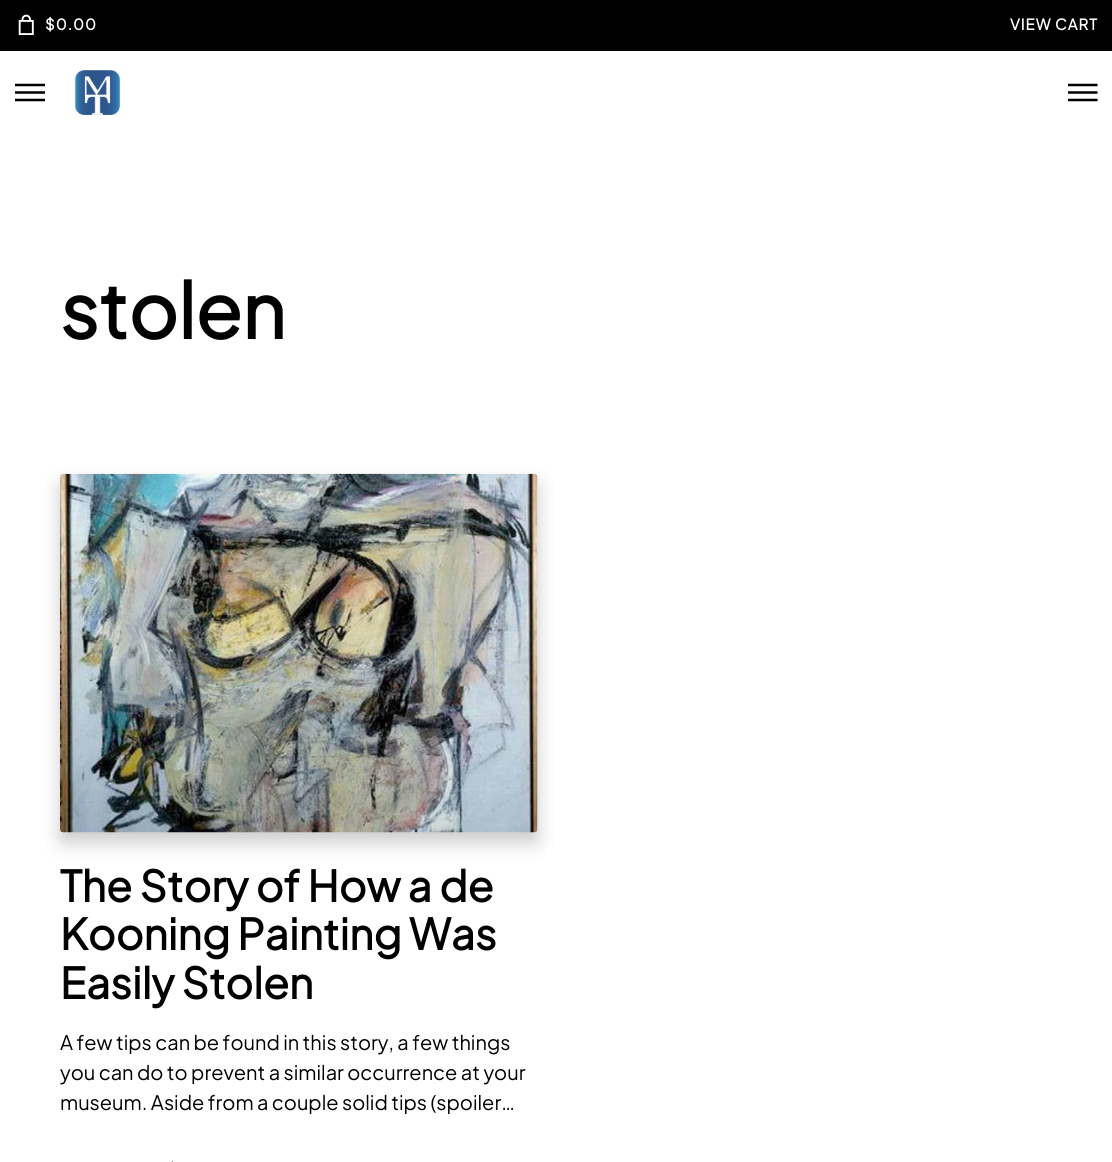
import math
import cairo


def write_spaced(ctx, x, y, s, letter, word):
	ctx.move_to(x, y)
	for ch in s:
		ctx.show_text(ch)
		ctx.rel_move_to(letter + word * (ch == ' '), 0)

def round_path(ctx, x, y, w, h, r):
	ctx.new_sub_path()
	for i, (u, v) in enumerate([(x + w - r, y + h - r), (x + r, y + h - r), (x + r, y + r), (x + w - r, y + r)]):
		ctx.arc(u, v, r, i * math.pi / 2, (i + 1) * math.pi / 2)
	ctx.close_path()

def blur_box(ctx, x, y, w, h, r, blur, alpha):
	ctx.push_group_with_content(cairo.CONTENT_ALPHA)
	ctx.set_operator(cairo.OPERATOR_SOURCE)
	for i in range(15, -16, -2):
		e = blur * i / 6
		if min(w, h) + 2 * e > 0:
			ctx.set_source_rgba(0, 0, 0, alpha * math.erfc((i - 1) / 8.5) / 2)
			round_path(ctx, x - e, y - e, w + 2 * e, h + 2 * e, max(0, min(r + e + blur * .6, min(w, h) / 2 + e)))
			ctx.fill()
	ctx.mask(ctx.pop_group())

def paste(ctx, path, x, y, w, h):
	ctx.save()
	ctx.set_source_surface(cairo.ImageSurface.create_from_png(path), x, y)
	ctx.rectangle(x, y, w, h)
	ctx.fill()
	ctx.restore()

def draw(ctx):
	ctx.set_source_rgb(1, 1, 1)
	ctx.paint()
	ctx.set_source_rgb(0, 0, 0)
	ctx.rectangle(0, 0, 1112, 51)
	ctx.fill()
	paste(ctx, 'media/1.png', 18, 14, 16, 21)
	ctx.select_font_face('Plus Jakarta Sans', cairo.FONT_SLANT_NORMAL, cairo.FONT_WEIGHT_BOLD)
	ctx.set_font_size(15)
	ctx.set_source_rgb(1, 1, 1)
	write_spaced(ctx, 45, 30, '$0.00', 1, 0)
	write_spaced(ctx, 1010, 30, 'VIEW CART', 1, 0)
	paste(ctx, 'media/2.png', 15, 83, 30, 19)
	paste(ctx, 'media/3.png', 75, 70, 45, 45)
	paste(ctx, 'media/4.png', 1068, 83, 30, 19)
	ctx.set_font_size(76)
	ctx.set_source_rgb(0, 0, 0)
	ctx.move_to(60, 339)
	ctx.show_text('stolen')
	ctx.set_source_rgb(0, 0, 0)
	blur_box(ctx, 60, 484, 478, 359, 4, 9.5, 0.2)
	paste(ctx, 'media/5.png', 60, 473, 478, 360)
	ctx.set_font_size(42.5)
	ctx.set_source_rgb(0, 0, 0)
	for x, y, s in [
		(60, 902, 'The Story of How a de'),
		(60, 950, 'Kooning Painting Was'),
		(60, 999, 'Easily Stolen'),
	]:
		ctx.move_to(x, y)
		ctx.show_text(s)
	ctx.select_font_face('Plus Jakarta Sans')
	ctx.set_font_size(20)
	for x, y, s in [
		(60, 1050, 'A few tips can be found in this story, a few things'),
		(60, 1080, 'you can do to prevent a similar occurrence at your'),
		(60, 1110, 'museum. Aside from a couple solid tips (spoiler…'),
	]:
		ctx.move_to(x, y)
		ctx.show_text(s)
	paste(ctx, 'media/6.png', 171, 1161, 2, 1)


surface = cairo.ImageSurface(cairo.FORMAT_RGB24, 1112, 1162)
ctx = cairo.Context(surface)
options = cairo.FontOptions()
options.set_hint_metrics(cairo.HINT_METRICS_OFF)
options.set_hint_style(cairo.HINT_STYLE_NONE)
ctx.set_font_options(options)
ctx.set_miter_limit(4)
draw(ctx)
surface.write_to_png('image.png')
